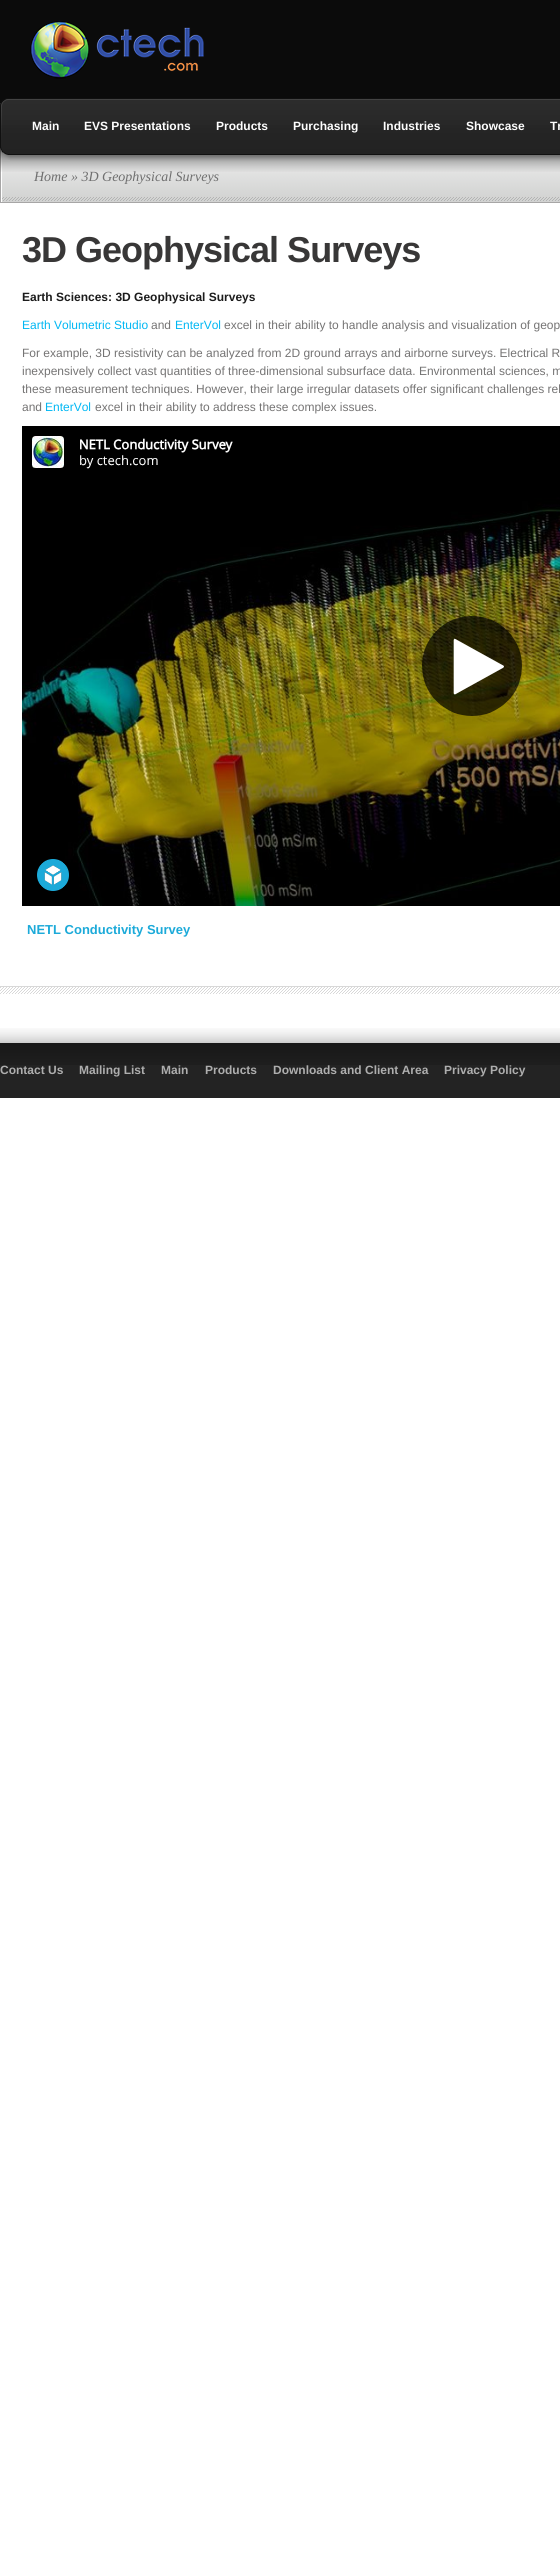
import math
import cairo


def write_spaced(ctx, x, y, s, letter, word):
	ctx.move_to(x, y)
	for ch in s:
		ctx.show_text(ch)
		ctx.rel_move_to(letter + word * (ch == ' '), 0)

def paste(ctx, path, x, y, w, h):
	ctx.save()
	ctx.set_source_surface(cairo.ImageSurface.create_from_png(path), x, y)
	ctx.rectangle(x, y, w, h)
	ctx.fill()
	ctx.restore()

def draw(ctx):
	ctx.set_source_rgb(1, 1, 1)
	ctx.paint()
	ctx.set_source_rgb(0.043, 0.043, 0.043)
	ctx.rectangle(0, 0, 560, 103)
	ctx.fill()
	paste(ctx, 'media/1.png', 0, 103, 1, 45)
	paste(ctx, 'media/2.png', 30, 21, 174, 58)
	paste(ctx, 'media/5.png', 0, 152, 560, 51)
	paste(ctx, 'media/7.png', 0, 148, 2, 54)
	ctx.select_font_face('Liberation Serif', cairo.FONT_SLANT_ITALIC)
	ctx.set_font_size(14)
	ctx.set_source_rgb(0.435, 0.435, 0.435)
	ctx.move_to(34, 181)
	ctx.show_text('Home » 3D Geophysical Surveys')
	paste(ctx, 'media/6.png', 0, 148, 560, 24)
	paste(ctx, 'media/3.png', 0, 98, 10, 62)
	paste(ctx, 'media/4.png', 10, 98, 550, 63)
	ctx.select_font_face('Liberation Sans', cairo.FONT_SLANT_NORMAL, cairo.FONT_WEIGHT_BOLD)
	ctx.set_font_size(12)
	ctx.set_source_rgb(0.996, 0.996, 0.996)
	for x, y, s in [
		(32, 130, 'Main'),
		(84, 130, 'EVS Presentations'),
		(216, 130, 'Products'),
		(293, 130, 'Purchasing'),
		(383, 130, 'Industries'),
		(466, 130, 'Showcase'),
		(550, 130, 'Tr'),
	]:
		ctx.move_to(x, y)
		ctx.show_text(s)
	paste(ctx, 'media/8.png', 0, 986, 560, 8)
	ctx.set_font_size(36)
	ctx.set_source_rgb(0.22, 0.216, 0.216)
	write_spaced(ctx, 22, 262, '3D Geophysical Surveys', -1, 0)
	ctx.set_font_size(12)
	ctx.set_source_rgb(0.11, 0.11, 0.11)
	ctx.move_to(22, 301)
	ctx.show_text('Earth Sciences: 3D Geophysical Surveys')
	ctx.select_font_face('Liberation Sans')
	ctx.set_source_rgb(0, 0.718, 0.953)
	ctx.move_to(22, 329)
	ctx.show_text('Earth Volumetric Studio')
	ctx.set_source_rgb(0.459, 0.455, 0.455)
	ctx.move_to(151, 329)
	ctx.show_text('and')
	ctx.set_source_rgb(0, 0.718, 0.953)
	ctx.move_to(175, 329)
	ctx.show_text('EnterVol')
	ctx.set_source_rgb(0.459, 0.455, 0.455)
	for x, y, s in [
		(224, 329, 'excel in their ability to handle analysis and visualization of geop'),
		(22, 357, 'For example, 3D resistivity can be analyzed from 2D ground arrays and airborne surveys. Electrical R'),
		(22, 375, 'inexpensively collect vast quantities of three-dimensional subsurface data. Environmental sciences, m'),
		(22, 393, 'these measurement techniques. However, their large irregular datasets offer significant challenges rel'),
		(22, 411, 'and'),
	]:
		ctx.move_to(x, y)
		ctx.show_text(s)
	ctx.set_source_rgb(0, 0.718, 0.953)
	ctx.move_to(45, 411)
	ctx.show_text('EnterVol')
	ctx.set_source_rgb(0.459, 0.455, 0.455)
	ctx.move_to(95, 411)
	ctx.show_text('excel in their ability to address these complex issues.')
	paste(ctx, 'media/9.png', 22, 426, 538, 480)
	ctx.select_font_face('Liberation Sans', cairo.FONT_SLANT_NORMAL, cairo.FONT_WEIGHT_BOLD)
	ctx.set_font_size(13)
	ctx.set_source_rgb(0.11, 0.667, 0.851)
	ctx.move_to(27, 934)
	ctx.show_text('NETL Conductivity Survey')
	paste(ctx, 'media/10.png', 0, 1028, 560, 15)
	ctx.set_source_rgb(0.137, 0.137, 0.137)
	ctx.rectangle(0, 1065, 560, 33)
	ctx.fill()
	paste(ctx, 'media/11.png', 0, 1043, 560, 22)
	ctx.set_font_size(12)
	ctx.set_source_rgb(0.682, 0.682, 0.682)
	for x, y, s in [
		(0, 1074, 'Contact Us'),
		(79, 1074, 'Mailing List'),
		(161, 1074, 'Main'),
		(205, 1074, 'Products'),
		(273, 1074, 'Downloads and Client Area'),
		(444, 1074, 'Privacy Policy'),
	]:
		ctx.move_to(x, y)
		ctx.show_text(s)


surface = cairo.ImageSurface(cairo.FORMAT_RGB24, 560, 2570)
ctx = cairo.Context(surface)
options = cairo.FontOptions()
options.set_hint_metrics(cairo.HINT_METRICS_OFF)
options.set_hint_style(cairo.HINT_STYLE_NONE)
ctx.set_font_options(options)
ctx.set_miter_limit(4)
draw(ctx)
surface.write_to_png('image.png')
